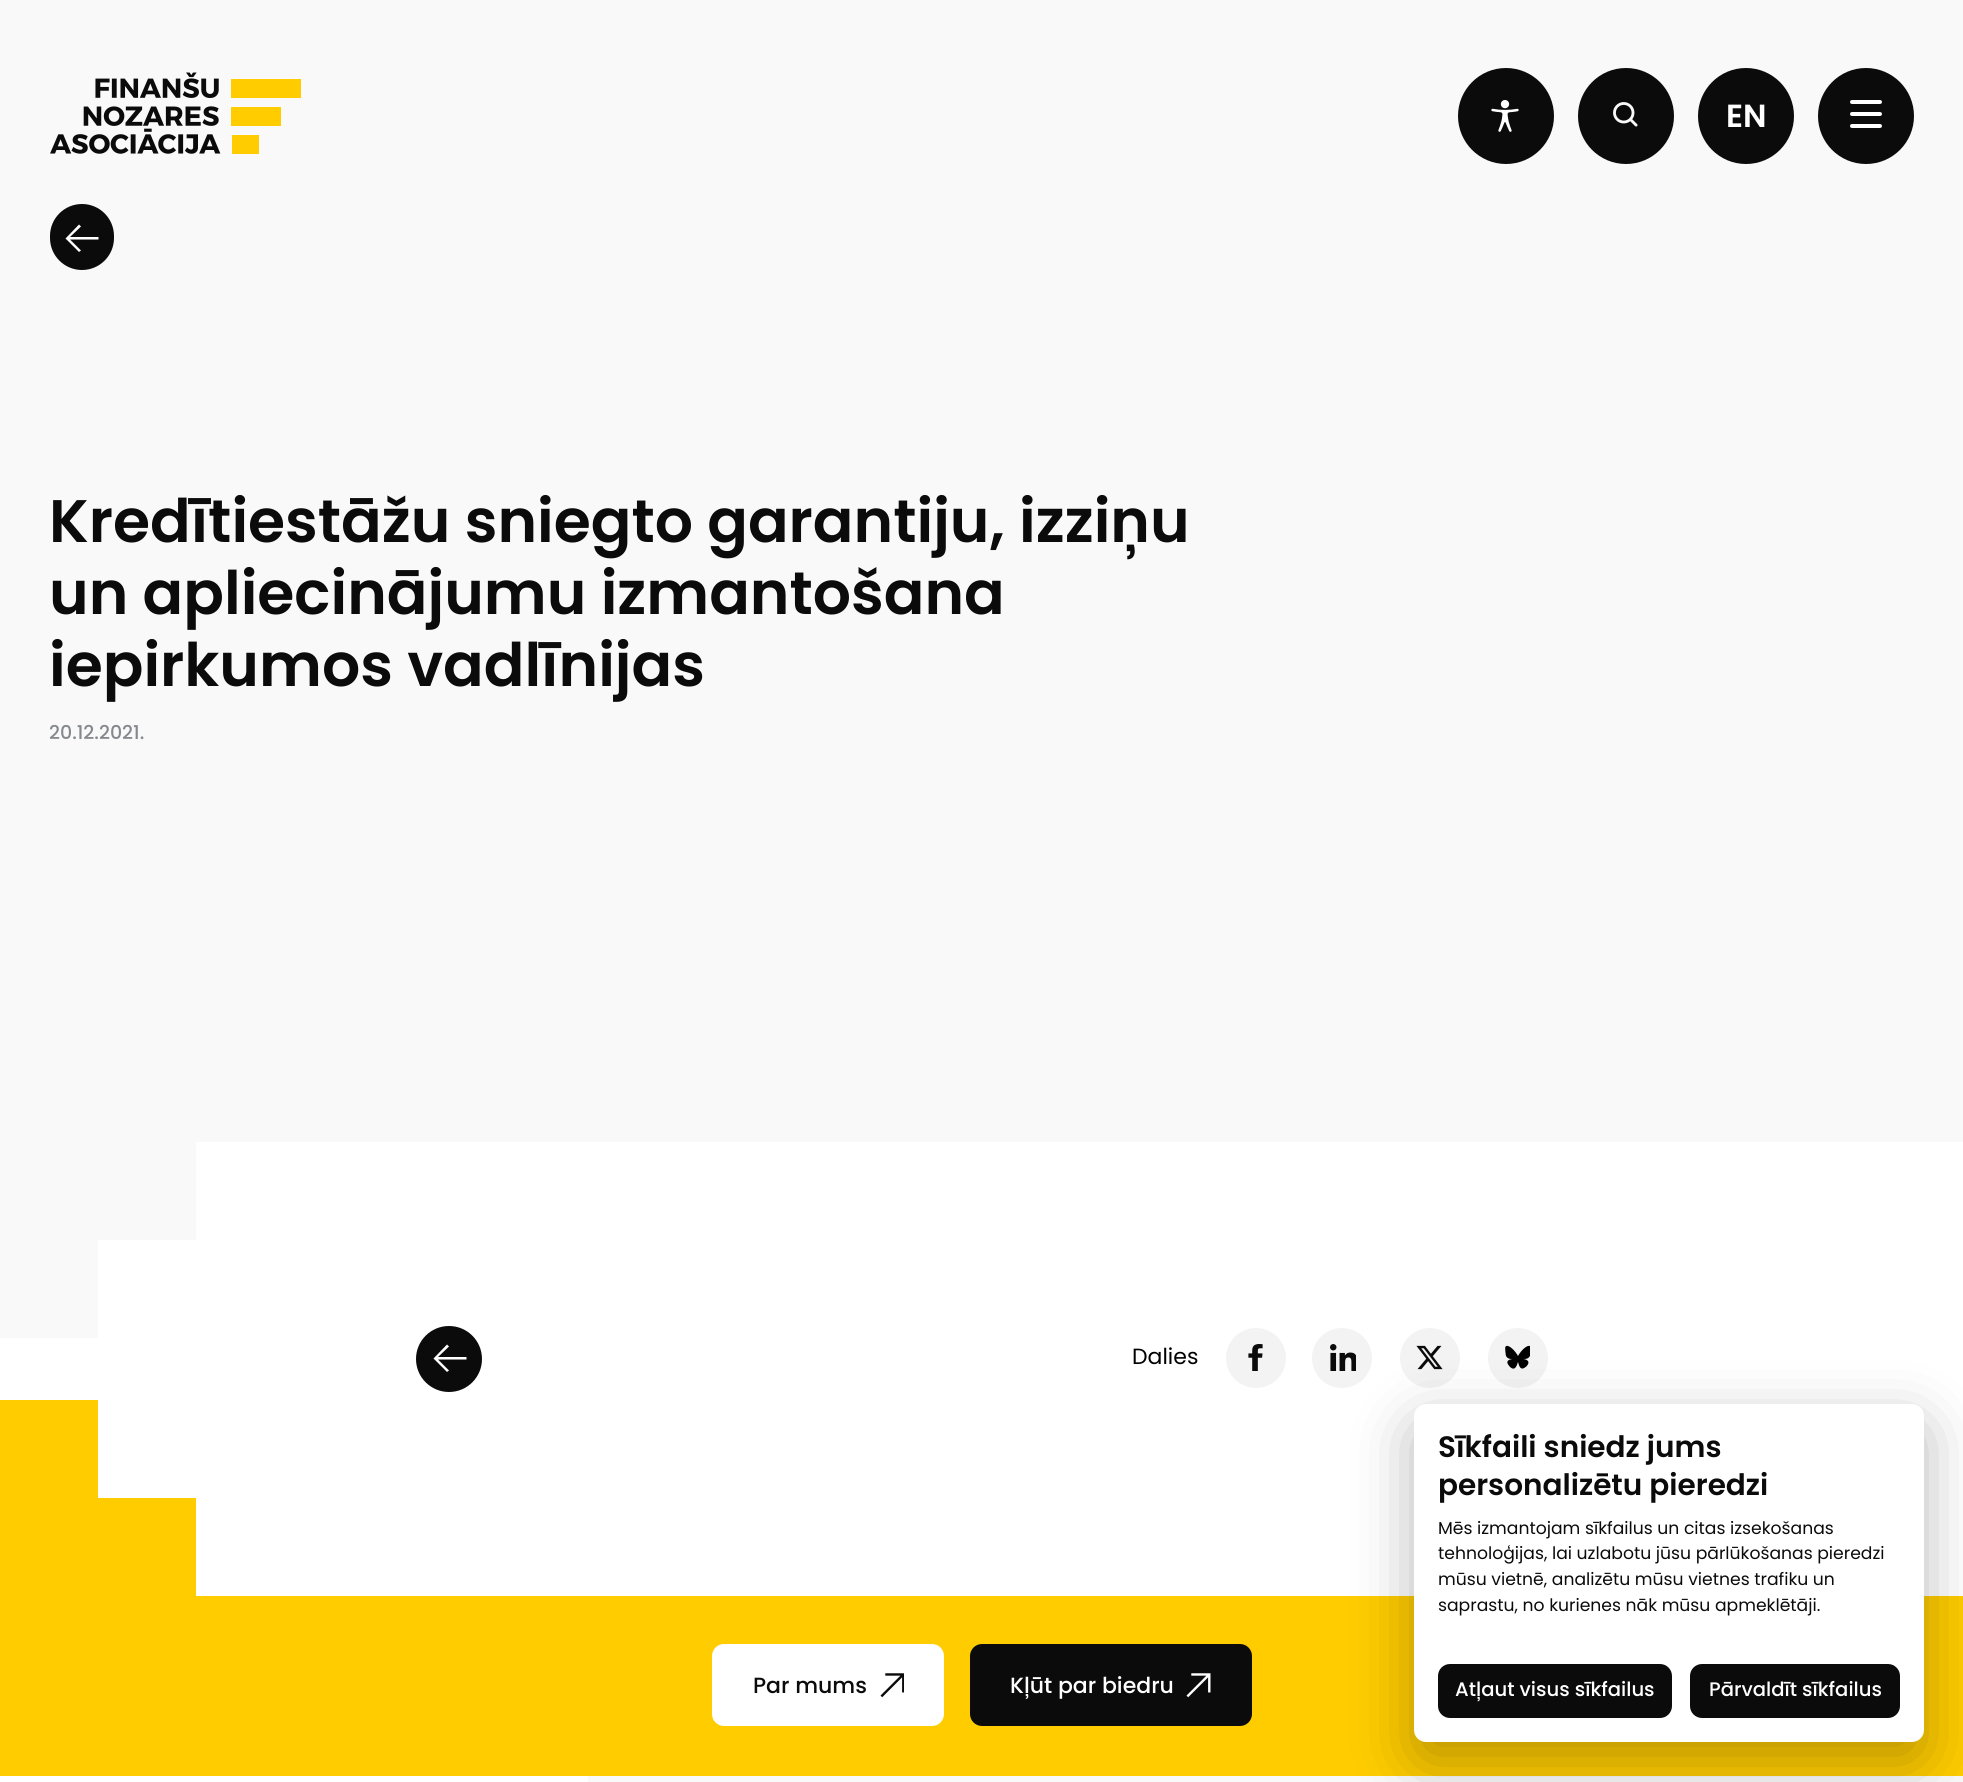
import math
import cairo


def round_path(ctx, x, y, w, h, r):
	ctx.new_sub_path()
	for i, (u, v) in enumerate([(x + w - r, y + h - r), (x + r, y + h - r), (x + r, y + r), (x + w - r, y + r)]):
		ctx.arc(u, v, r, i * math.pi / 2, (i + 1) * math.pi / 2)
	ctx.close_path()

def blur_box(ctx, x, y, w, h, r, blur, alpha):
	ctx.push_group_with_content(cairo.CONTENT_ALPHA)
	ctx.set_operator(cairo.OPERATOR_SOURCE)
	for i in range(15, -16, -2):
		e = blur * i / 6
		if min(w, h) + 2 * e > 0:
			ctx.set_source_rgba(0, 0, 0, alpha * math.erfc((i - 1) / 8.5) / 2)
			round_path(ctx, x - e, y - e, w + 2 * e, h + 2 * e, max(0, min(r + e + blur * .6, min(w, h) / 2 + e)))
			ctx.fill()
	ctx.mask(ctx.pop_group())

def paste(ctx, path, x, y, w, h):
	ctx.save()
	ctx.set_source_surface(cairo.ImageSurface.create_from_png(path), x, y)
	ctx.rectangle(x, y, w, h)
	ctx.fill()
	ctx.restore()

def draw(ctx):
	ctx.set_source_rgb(0.976, 0.976, 0.98)
	ctx.paint()
	paste(ctx, 'media/1.png', 50, 72, 251, 82)
	ctx.set_source_rgb(0.043, 0.043, 0.043)
	ctx.arc(1506, 116, 48, 0, 2 * math.pi)
	ctx.fill()
	paste(ctx, 'media/2.png', 1491, 100, 28, 32)
	ctx.arc(1626, 116, 48, 0, 2 * math.pi)
	ctx.fill()
	paste(ctx, 'media/3.png', 1613, 102, 25, 25)
	ctx.arc(1746, 116, 48, 0, 2 * math.pi)
	ctx.fill()
	ctx.select_font_face('Poppins SemiBold')
	ctx.set_font_size(32)
	ctx.set_source_rgb(1, 1, 1)
	ctx.move_to(1726, 127)
	ctx.show_text('EN')
	ctx.set_source_rgb(0.043, 0.043, 0.043)
	ctx.new_path()
	ctx.arc(1866, 116, 48, 0, 2 * math.pi)
	ctx.fill()
	ctx.set_source_rgb(1, 1, 1)
	round_path(ctx, 1850, 100, 32, 4, 2)
	ctx.fill()
	round_path(ctx, 1850, 112, 32, 4, 2)
	ctx.fill()
	round_path(ctx, 1850, 124, 32, 4, 2)
	ctx.fill()
	ctx.set_source_rgb(0.043, 0.043, 0.043)
	round_path(ctx, 50, 204, 64, 66, 32)
	ctx.fill()
	ctx.set_source_rgb(1, 1, 1)
	ctx.new_path()
	ctx.move_to(79, 252)
	ctx.line_to(81, 250.5)
	ctx.line_to(70, 239.5)
	ctx.line_to(98.5, 239.5)
	ctx.line_to(98.5, 237)
	ctx.line_to(70, 237)
	ctx.line_to(81, 226.5)
	ctx.line_to(79, 224.5)
	ctx.line_to(65.5, 238.5)
	ctx.close_path()
	ctx.fill()
	ctx.set_font_size(60)
	ctx.set_source_rgb(0.043, 0.043, 0.043)
	for x, y, s in [
		(49, 542, 'Kredītiestāžu sniegto garantiju, izziņu'),
		(49, 614, 'un apliecinājumu izmantošana'),
		(49, 686, 'iepirkumos vadlīnijas'),
	]:
		ctx.move_to(x, y)
		ctx.show_text(s)
	ctx.select_font_face('Poppins Medium')
	ctx.set_font_size(19)
	ctx.set_source_rgb(0.522, 0.533, 0.557)
	ctx.move_to(49, 739)
	ctx.show_text('20.12.2021.')
	ctx.set_source_rgb(1, 1, 1)
	ctx.rectangle(0, 1142, 1963, 454)
	ctx.fill()
	ctx.set_source_rgb(0.976, 0.976, 0.98)
	ctx.rectangle(0, 1142, 196, 98)
	ctx.rectangle(0, 1240, 98, 98)
	ctx.fill()
	ctx.set_source_rgb(0.043, 0.043, 0.043)
	ctx.arc(449, 1359, 33, 0, 2 * math.pi)
	ctx.fill()
	ctx.set_source_rgb(1, 1, 1)
	ctx.new_path()
	ctx.move_to(447, 1372)
	ctx.line_to(449, 1370.5)
	ctx.line_to(438, 1359.5)
	ctx.line_to(466.5, 1359.5)
	ctx.line_to(466.5, 1357)
	ctx.line_to(438, 1357)
	ctx.line_to(449, 1346.5)
	ctx.line_to(447, 1344.5)
	ctx.line_to(433.5, 1358.5)
	ctx.close_path()
	ctx.fill()
	ctx.select_font_face('Poppins')
	ctx.set_font_size(22)
	ctx.set_source_rgb(0, 0, 0)
	ctx.move_to(1132, 1364)
	ctx.show_text('Dalies')
	ctx.set_source_rgb(0.953, 0.953, 0.953)
	ctx.new_path()
	ctx.arc(1256, 1358, 30, 0, 2 * math.pi)
	ctx.fill()
	paste(ctx, 'media/4.png', 1248, 1344, 15, 27)
	ctx.arc(1342, 1358, 30, 0, 2 * math.pi)
	ctx.fill()
	paste(ctx, 'media/5.png', 1330, 1344, 26, 27)
	ctx.arc(1430, 1358, 30, 0, 2 * math.pi)
	ctx.fill()
	paste(ctx, 'media/6.png', 1416, 1345, 27, 25)
	ctx.arc(1518, 1358, 30, 0, 2 * math.pi)
	ctx.fill()
	paste(ctx, 'media/7.png', 1505, 1345, 25, 24)
	ctx.set_source_rgb(1, 0.8, 0)
	ctx.rectangle(0, 1596, 1963, 180)
	ctx.rectangle(0, 1400, 98, 196)
	ctx.rectangle(98, 1498, 98, 98)
	ctx.fill()
	ctx.set_source_rgb(1, 1, 1)
	round_path(ctx, 712, 1644, 232, 82, 12)
	ctx.fill()
	ctx.select_font_face('Poppins Medium')
	ctx.set_source_rgb(0.043, 0.043, 0.043)
	ctx.move_to(753, 1693)
	ctx.show_text('Par mums')
	paste(ctx, 'media/8.png', 880, 1673, 24, 25)
	round_path(ctx, 970, 1644, 282, 82, 12)
	ctx.fill()
	ctx.set_source_rgb(1, 1, 1)
	ctx.move_to(1010, 1693)
	ctx.show_text('Kļūt par biedru')
	paste(ctx, 'media/9.png', 1186, 1673, 25, 25)
	ctx.set_source_rgb(0.008, 0.008, 0.012)
	blur_box(ctx, 1414, 1424, 510, 338, 12, 30, 0.28)
	ctx.set_source_rgb(1, 1, 1)
	round_path(ctx, 1414, 1404, 510, 338, 12)
	ctx.fill()
	ctx.select_font_face('Poppins SemiBold')
	ctx.set_font_size(29.5)
	ctx.set_source_rgb(0.043, 0.043, 0.043)
	ctx.move_to(1438, 1457)
	ctx.show_text('Sīkfaili sniedz jums')
	ctx.move_to(1438, 1495)
	ctx.show_text('personalizētu pieredzi')
	ctx.select_font_face('Poppins')
	ctx.set_font_size(17.2)
	for x, y, s in [
		(1438, 1534, 'Mēs izmantojam sīkfailus un citas izsekošanas'),
		(1438, 1559, 'tehnoloģijas, lai uzlabotu jūsu pārlūkošanas pieredzi'),
		(1438, 1585, 'mūsu vietnē, analizētu mūsu vietnes trafiku un'),
		(1438, 1611, 'saprastu, no kurienes nāk mūsu apmeklētāji.'),
	]:
		ctx.move_to(x, y)
		ctx.show_text(s)
	round_path(ctx, 1438, 1664, 234, 54, 12)
	ctx.fill()
	ctx.select_font_face('Poppins Medium')
	ctx.set_font_size(19.6)
	ctx.set_source_rgb(1, 1, 1)
	ctx.move_to(1455, 1696)
	ctx.show_text('Atļaut visus sīkfailus')
	ctx.set_source_rgb(0.043, 0.043, 0.043)
	round_path(ctx, 1690, 1664, 210, 54, 12)
	ctx.fill()
	ctx.set_source_rgb(1, 1, 1)
	ctx.move_to(1709, 1696)
	ctx.show_text('Pārvaldīt sīkfailus')
	ctx.rectangle(0, 1776, 588, 6)
	ctx.fill()


surface = cairo.ImageSurface(cairo.FORMAT_RGB24, 1963, 1782)
ctx = cairo.Context(surface)
options = cairo.FontOptions()
options.set_hint_metrics(cairo.HINT_METRICS_OFF)
options.set_hint_style(cairo.HINT_STYLE_NONE)
ctx.set_font_options(options)
ctx.set_miter_limit(4)
draw(ctx)
surface.write_to_png('image.png')
